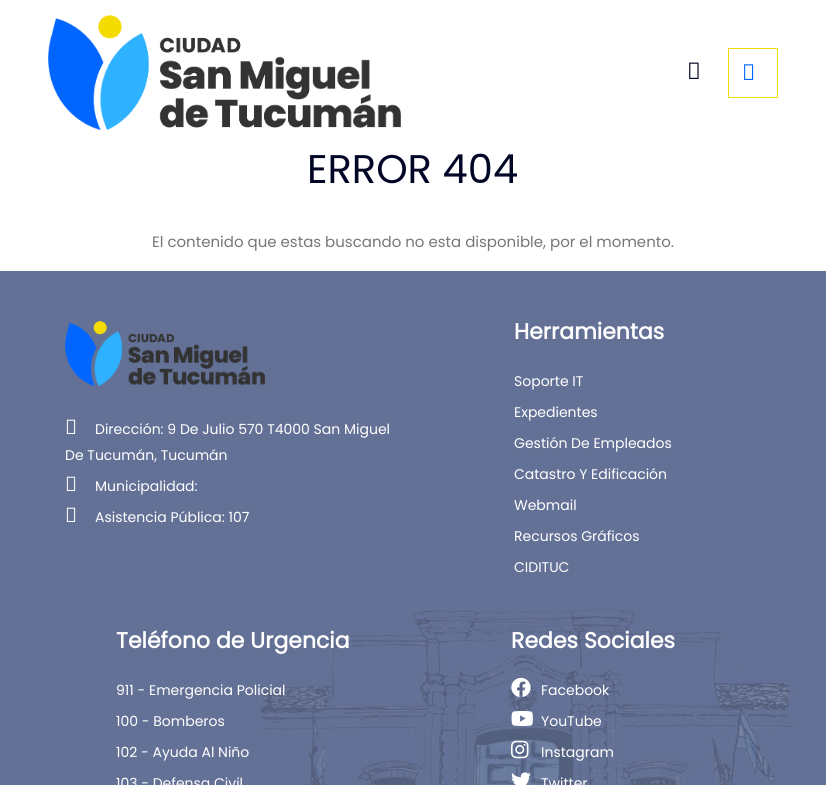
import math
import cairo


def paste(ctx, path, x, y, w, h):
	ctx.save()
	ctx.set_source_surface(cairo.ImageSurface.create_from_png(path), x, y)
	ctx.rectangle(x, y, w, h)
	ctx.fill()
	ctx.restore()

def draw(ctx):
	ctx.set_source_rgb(1, 1, 1)
	ctx.paint()
	paste(ctx, 'media/1.png', 48, 15, 353, 115)
	paste(ctx, 'media/2.png', 689, 62, 10, 17)
	ctx.rectangle(728.5, 48.5, 49, 49)
	ctx.set_source_rgb(0.957, 0.863, 0)
	ctx.set_line_width(1)
	ctx.stroke()
	paste(ctx, 'media/3.png', 744, 64, 10, 16)
	ctx.select_font_face('Poppins')
	ctx.set_font_size(40)
	ctx.set_source_rgb(0.008, 0.024, 0.149)
	ctx.move_to(307, 183)
	ctx.show_text('ERROR 404')
	ctx.set_font_size(15)
	ctx.set_source_rgb(0.463, 0.463, 0.463)
	ctx.move_to(152, 247)
	ctx.show_text('El contenido que estas buscando no esta disponible, por el momento.')
	ctx.set_source_rgb(0.392, 0.443, 0.592)
	ctx.rectangle(0, 271, 826, 514)
	ctx.fill()
	paste(ctx, 'media/4.png', 65, 321, 200, 66)
	paste(ctx, 'media/5.png', 66, 419, 10, 15)
	ctx.set_font_size(14)
	ctx.set_source_rgb(1, 1, 1)
	ctx.move_to(95, 434)
	ctx.show_text('Dirección: 9 De Julio 570 T4000 San Miguel')
	ctx.move_to(65, 460)
	ctx.show_text('De Tucumán, Tucumán')
	paste(ctx, 'media/5.png', 66, 476, 10, 15)
	ctx.move_to(95, 491)
	ctx.show_text('Municipalidad:')
	paste(ctx, 'media/5.png', 66, 507, 10, 15)
	ctx.move_to(95, 522)
	ctx.show_text('Asistencia Pública: 107')
	ctx.select_font_face('Poppins', cairo.FONT_SLANT_NORMAL, cairo.FONT_WEIGHT_BOLD)
	ctx.set_font_size(22)
	ctx.move_to(514, 339)
	ctx.show_text('Herramientas')
	ctx.select_font_face('Poppins')
	ctx.set_font_size(14)
	for x, y, s in [
		(514, 386, 'Soporte IT'),
		(514, 417, 'Expedientes'),
		(514, 448, 'Gestión De Empleados'),
		(514, 479, 'Catastro Y Edificación'),
		(514, 510, 'Webmail'),
		(514, 541, 'Recursos Gráficos'),
		(514, 572, 'CIDITUC'),
	]:
		ctx.move_to(x, y)
		ctx.show_text(s)
	paste(ctx, 'media/10.png', 260, 609, 539, 176)
	ctx.select_font_face('Poppins', cairo.FONT_SLANT_NORMAL, cairo.FONT_WEIGHT_BOLD)
	ctx.set_font_size(22)
	ctx.move_to(116, 648)
	ctx.show_text('Teléfono de Urgencia')
	ctx.select_font_face('Poppins')
	ctx.set_font_size(14)
	for x, y, s in [
		(116, 695, '911 - Emergencia Policial'),
		(116, 726, '100 - Bomberos'),
		(116, 757, '102 - Ayuda Al Niño'),
		(116, 788, '103 - Defensa Civil'),
	]:
		ctx.move_to(x, y)
		ctx.show_text(s)
	ctx.select_font_face('Poppins', cairo.FONT_SLANT_NORMAL, cairo.FONT_WEIGHT_BOLD)
	ctx.set_font_size(22)
	ctx.move_to(511, 648)
	ctx.show_text('Redes Sociales')
	paste(ctx, 'media/6.png', 511, 677, 20, 20)
	ctx.select_font_face('Poppins')
	ctx.set_font_size(14)
	ctx.move_to(541, 695)
	ctx.show_text('Facebook')
	paste(ctx, 'media/7.png', 511, 711, 22, 15)
	ctx.move_to(541, 726)
	ctx.show_text('YouTube')
	paste(ctx, 'media/8.png', 511, 740, 18, 19)
	ctx.move_to(541, 757)
	ctx.show_text('Instagram')
	paste(ctx, 'media/9.png', 511, 772, 20, 13)
	ctx.move_to(541, 788)
	ctx.show_text('Twitter')


surface = cairo.ImageSurface(cairo.FORMAT_RGB24, 826, 785)
ctx = cairo.Context(surface)
options = cairo.FontOptions()
options.set_hint_metrics(cairo.HINT_METRICS_OFF)
options.set_hint_style(cairo.HINT_STYLE_NONE)
ctx.set_font_options(options)
ctx.set_miter_limit(4)
draw(ctx)
surface.write_to_png('image.png')
